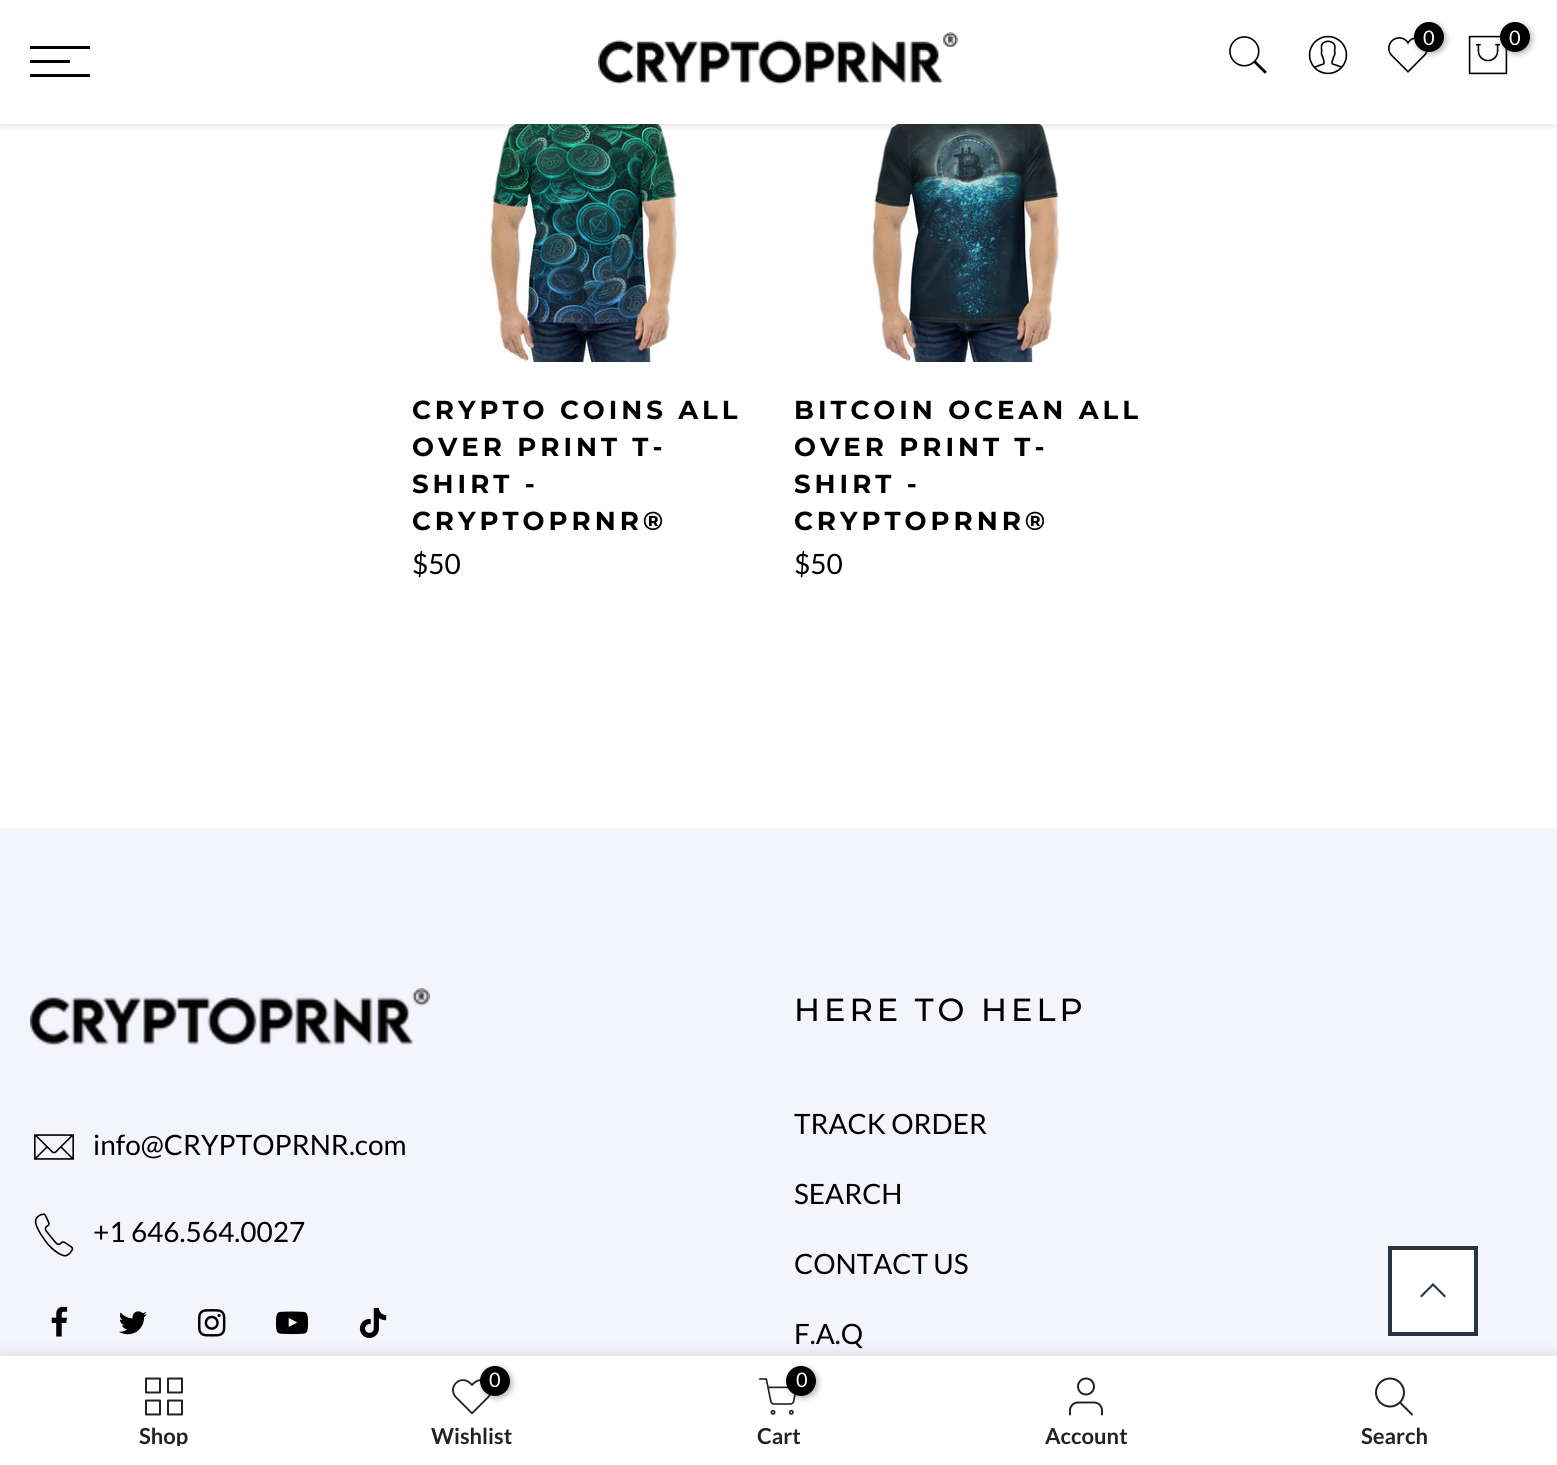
import math
import cairo


def write_spaced(ctx, x, y, s, letter, word):
	ctx.move_to(x, y)
	for ch in s:
		ctx.show_text(ch)
		ctx.rel_move_to(letter + word * (ch == ' '), 0)

def round_path(ctx, x, y, w, h, r):
	ctx.new_sub_path()
	for i, (u, v) in enumerate([(x + w - r, y + h - r), (x + r, y + h - r), (x + r, y + r), (x + w - r, y + r)]):
		ctx.arc(u, v, r, i * math.pi / 2, (i + 1) * math.pi / 2)
	ctx.close_path()

def blur_box(ctx, x, y, w, h, r, blur, alpha):
	ctx.push_group_with_content(cairo.CONTENT_ALPHA)
	ctx.set_operator(cairo.OPERATOR_SOURCE)
	for i in range(15, -16, -2):
		e = blur * i / 6
		if min(w, h) + 2 * e > 0:
			ctx.set_source_rgba(0, 0, 0, alpha * math.erfc((i - 1) / 8.5) / 2)
			round_path(ctx, x - e, y - e, w + 2 * e, h + 2 * e, max(0, min(r + e + blur * .6, min(w, h) / 2 + e)))
			ctx.fill()
	ctx.mask(ctx.pop_group())

def paste(ctx, path, x, y, w, h):
	ctx.save()
	ctx.set_source_surface(cairo.ImageSurface.create_from_png(path), x, y)
	ctx.rectangle(x, y, w, h)
	ctx.fill()
	ctx.restore()

def draw(ctx):
	ctx.set_source_rgb(1, 1, 1)
	ctx.paint()
	paste(ctx, 'media/6.png', 490, 124, 189, 238)
	paste(ctx, 'media/7.png', 872, 124, 188, 238)
	ctx.set_source_rgb(0, 0, 0)
	blur_box(ctx, 0, 2, 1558, 124, 0, 3, 0.1)
	ctx.set_source_rgb(1, 1, 1)
	ctx.rectangle(0, 0, 1557, 124)
	ctx.fill()
	ctx.set_source_rgb(0, 0, 0)
	ctx.rectangle(30, 46, 60, 3)
	ctx.rectangle(30, 60, 40, 3)
	ctx.rectangle(30, 74, 60, 3)
	ctx.fill()
	paste(ctx, 'media/1.png', 598, 32, 360, 53)
	paste(ctx, 'media/2.png', 1229, 36, 38, 38)
	paste(ctx, 'media/3.png', 1308, 35, 40, 40)
	paste(ctx, 'media/4.png', 1388, 37, 40, 36)
	ctx.set_source_rgb(0, 0, 0)
	blur_box(ctx, 1416, 24, 30, 30, 15, 3, 0.3)
	ctx.set_source_rgb(0, 0, 0)
	ctx.arc(1429, 37, 15, 0, 2 * math.pi)
	ctx.fill()
	ctx.select_font_face('Lato')
	ctx.set_font_size(20)
	ctx.set_source_rgb(1, 1, 1)
	ctx.move_to(1423, 45)
	ctx.show_text('0')
	paste(ctx, 'media/5.png', 1468, 35, 40, 40)
	ctx.set_source_rgb(0, 0, 0)
	blur_box(ctx, 1502, 24, 30, 30, 15, 3, 0.3)
	ctx.set_source_rgb(0, 0, 0)
	ctx.arc(1515, 37, 15, 0, 2 * math.pi)
	ctx.fill()
	ctx.set_source_rgb(1, 1, 1)
	ctx.move_to(1509, 45)
	ctx.show_text('0')
	ctx.select_font_face('Montserrat', cairo.FONT_SLANT_NORMAL, cairo.FONT_WEIGHT_BOLD)
	ctx.set_font_size(26)
	ctx.set_source_rgb(0, 0, 0)
	for x, y, s in [
		(412, 419, 'CRYPTO COINS ALL'),
		(412, 456, 'OVER PRINT T-'),
		(412, 493, 'SHIRT -'),
		(412, 530, 'CRYPTOPRNR®'),
	]:
		write_spaced(ctx, x, y, s, 4, 0)
	ctx.select_font_face('Lato')
	ctx.set_font_size(28)
	ctx.move_to(412, 574)
	ctx.show_text('$50')
	ctx.select_font_face('Montserrat', cairo.FONT_SLANT_NORMAL, cairo.FONT_WEIGHT_BOLD)
	ctx.set_font_size(26)
	for x, y, s in [
		(794, 419, 'BITCOIN OCEAN ALL'),
		(794, 456, 'OVER PRINT T-'),
		(794, 493, 'SHIRT -'),
		(794, 530, 'CRYPTOPRNR®'),
	]:
		write_spaced(ctx, x, y, s, 4, 0)
	ctx.select_font_face('Lato')
	ctx.set_font_size(28)
	ctx.move_to(794, 574)
	ctx.show_text('$50')
	ctx.set_source_rgb(0.957, 0.957, 0.988)
	ctx.rectangle(0, 828, 1557, 528)
	ctx.fill()
	paste(ctx, 'media/8.png', 30, 988, 400, 57)
	paste(ctx, 'media/9.png', 34, 1134, 40, 26)
	ctx.set_source_rgb(0, 0, 0)
	ctx.move_to(93, 1155)
	ctx.show_text('info@CRYPTOPRNR.com')
	paste(ctx, 'media/10.png', 34, 1213, 40, 44)
	ctx.move_to(93, 1242)
	ctx.show_text('+1 646.564.0027')
	paste(ctx, 'media/11.png', 51, 1306, 17, 31)
	paste(ctx, 'media/12.png', 119, 1311, 28, 24)
	paste(ctx, 'media/13.png', 198, 1309, 28, 28)
	paste(ctx, 'media/14.png', 276, 1311, 32, 24)
	paste(ctx, 'media/15.png', 359, 1308, 28, 30)
	ctx.select_font_face('Montserrat Medium')
	ctx.set_font_size(32)
	write_spaced(ctx, 794, 1021, 'HERE TO HELP', 4, 0)
	ctx.select_font_face('Lato')
	ctx.set_font_size(28)
	for x, y, s in [
		(794, 1134, 'TRACK ORDER'),
		(794, 1204, 'SEARCH'),
		(794, 1274, 'CONTACT US'),
		(794, 1344, 'F.A.Q'),
	]:
		ctx.move_to(x, y)
		ctx.show_text(s)
	ctx.set_source_rgb(1, 1, 1)
	ctx.rectangle(1390, 1248, 86, 86)
	ctx.fill_preserve()
	ctx.set_source_rgb(0.161, 0.2, 0.255)
	ctx.set_line_width(4)
	ctx.stroke()
	ctx.new_path()
	ctx.move_to(1434.5, 1284.5)
	ctx.line_to(1433, 1283)
	ctx.line_to(1420, 1296)
	ctx.line_to(1421.5, 1297.5)
	ctx.line_to(1433, 1286)
	ctx.line_to(1444.5, 1297.5)
	ctx.line_to(1446, 1296)
	ctx.close_path()
	ctx.fill()
	ctx.set_source_rgb(0, 0, 0)
	blur_box(ctx, 0, 1356, 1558, 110, 0, 9, 0.12)
	ctx.set_source_rgb(1, 1, 1)
	ctx.rectangle(0, 1356, 1557, 109)
	ctx.fill()
	paste(ctx, 'media/16.png', 145, 1377, 38, 39)
	ctx.save()
	ctx.rectangle(30, 1424, 268, 22)
	ctx.clip()
	ctx.select_font_face('Lato', cairo.FONT_SLANT_NORMAL, cairo.FONT_WEIGHT_BOLD)
	ctx.set_font_size(22)
	ctx.set_source_rgb(0.133, 0.133, 0.133)
	ctx.move_to(139, 1444)
	ctx.show_text('Shop')
	ctx.restore()
	paste(ctx, 'media/17.png', 452, 1379, 39, 36)
	ctx.set_source_rgb(0, 0, 0)
	blur_box(ctx, 482, 1368, 30, 30, 15, 3, 0.3)
	ctx.set_source_rgb(0, 0, 0)
	ctx.arc(495, 1381, 15, 0, 2 * math.pi)
	ctx.fill()
	ctx.set_font_size(20)
	ctx.set_source_rgb(1, 1, 1)
	ctx.move_to(489, 1387)
	ctx.show_text('0')
	ctx.select_font_face('Lato', cairo.FONT_SLANT_NORMAL, cairo.FONT_WEIGHT_BOLD)
	ctx.set_font_size(22)
	ctx.set_source_rgb(0.133, 0.133, 0.133)
	ctx.move_to(431, 1444)
	ctx.show_text('Wishlist')
	paste(ctx, 'media/18.png', 758, 1378, 38, 37)
	ctx.set_source_rgb(0, 0, 0)
	blur_box(ctx, 788, 1368, 30, 30, 15, 3, 0.3)
	ctx.set_source_rgb(0, 0, 0)
	ctx.arc(801, 1381, 15, 0, 2 * math.pi)
	ctx.fill()
	ctx.select_font_face('Lato')
	ctx.set_font_size(20)
	ctx.set_source_rgb(1, 1, 1)
	ctx.move_to(796, 1387)
	ctx.show_text('0')
	ctx.select_font_face('Lato', cairo.FONT_SLANT_NORMAL, cairo.FONT_WEIGHT_BOLD)
	ctx.set_font_size(22)
	ctx.set_source_rgb(0.133, 0.133, 0.133)
	ctx.move_to(757, 1444)
	ctx.show_text('Cart')
	paste(ctx, 'media/19.png', 1069, 1377, 34, 39)
	ctx.move_to(1045, 1444)
	ctx.show_text('Account')
	paste(ctx, 'media/20.png', 1375, 1377, 38, 39)
	ctx.move_to(1361, 1444)
	ctx.show_text('Search')


surface = cairo.ImageSurface(cairo.FORMAT_RGB24, 1557, 1465)
ctx = cairo.Context(surface)
options = cairo.FontOptions()
options.set_hint_metrics(cairo.HINT_METRICS_OFF)
options.set_hint_style(cairo.HINT_STYLE_NONE)
ctx.set_font_options(options)
ctx.set_miter_limit(4)
draw(ctx)
surface.write_to_png('image.png')
